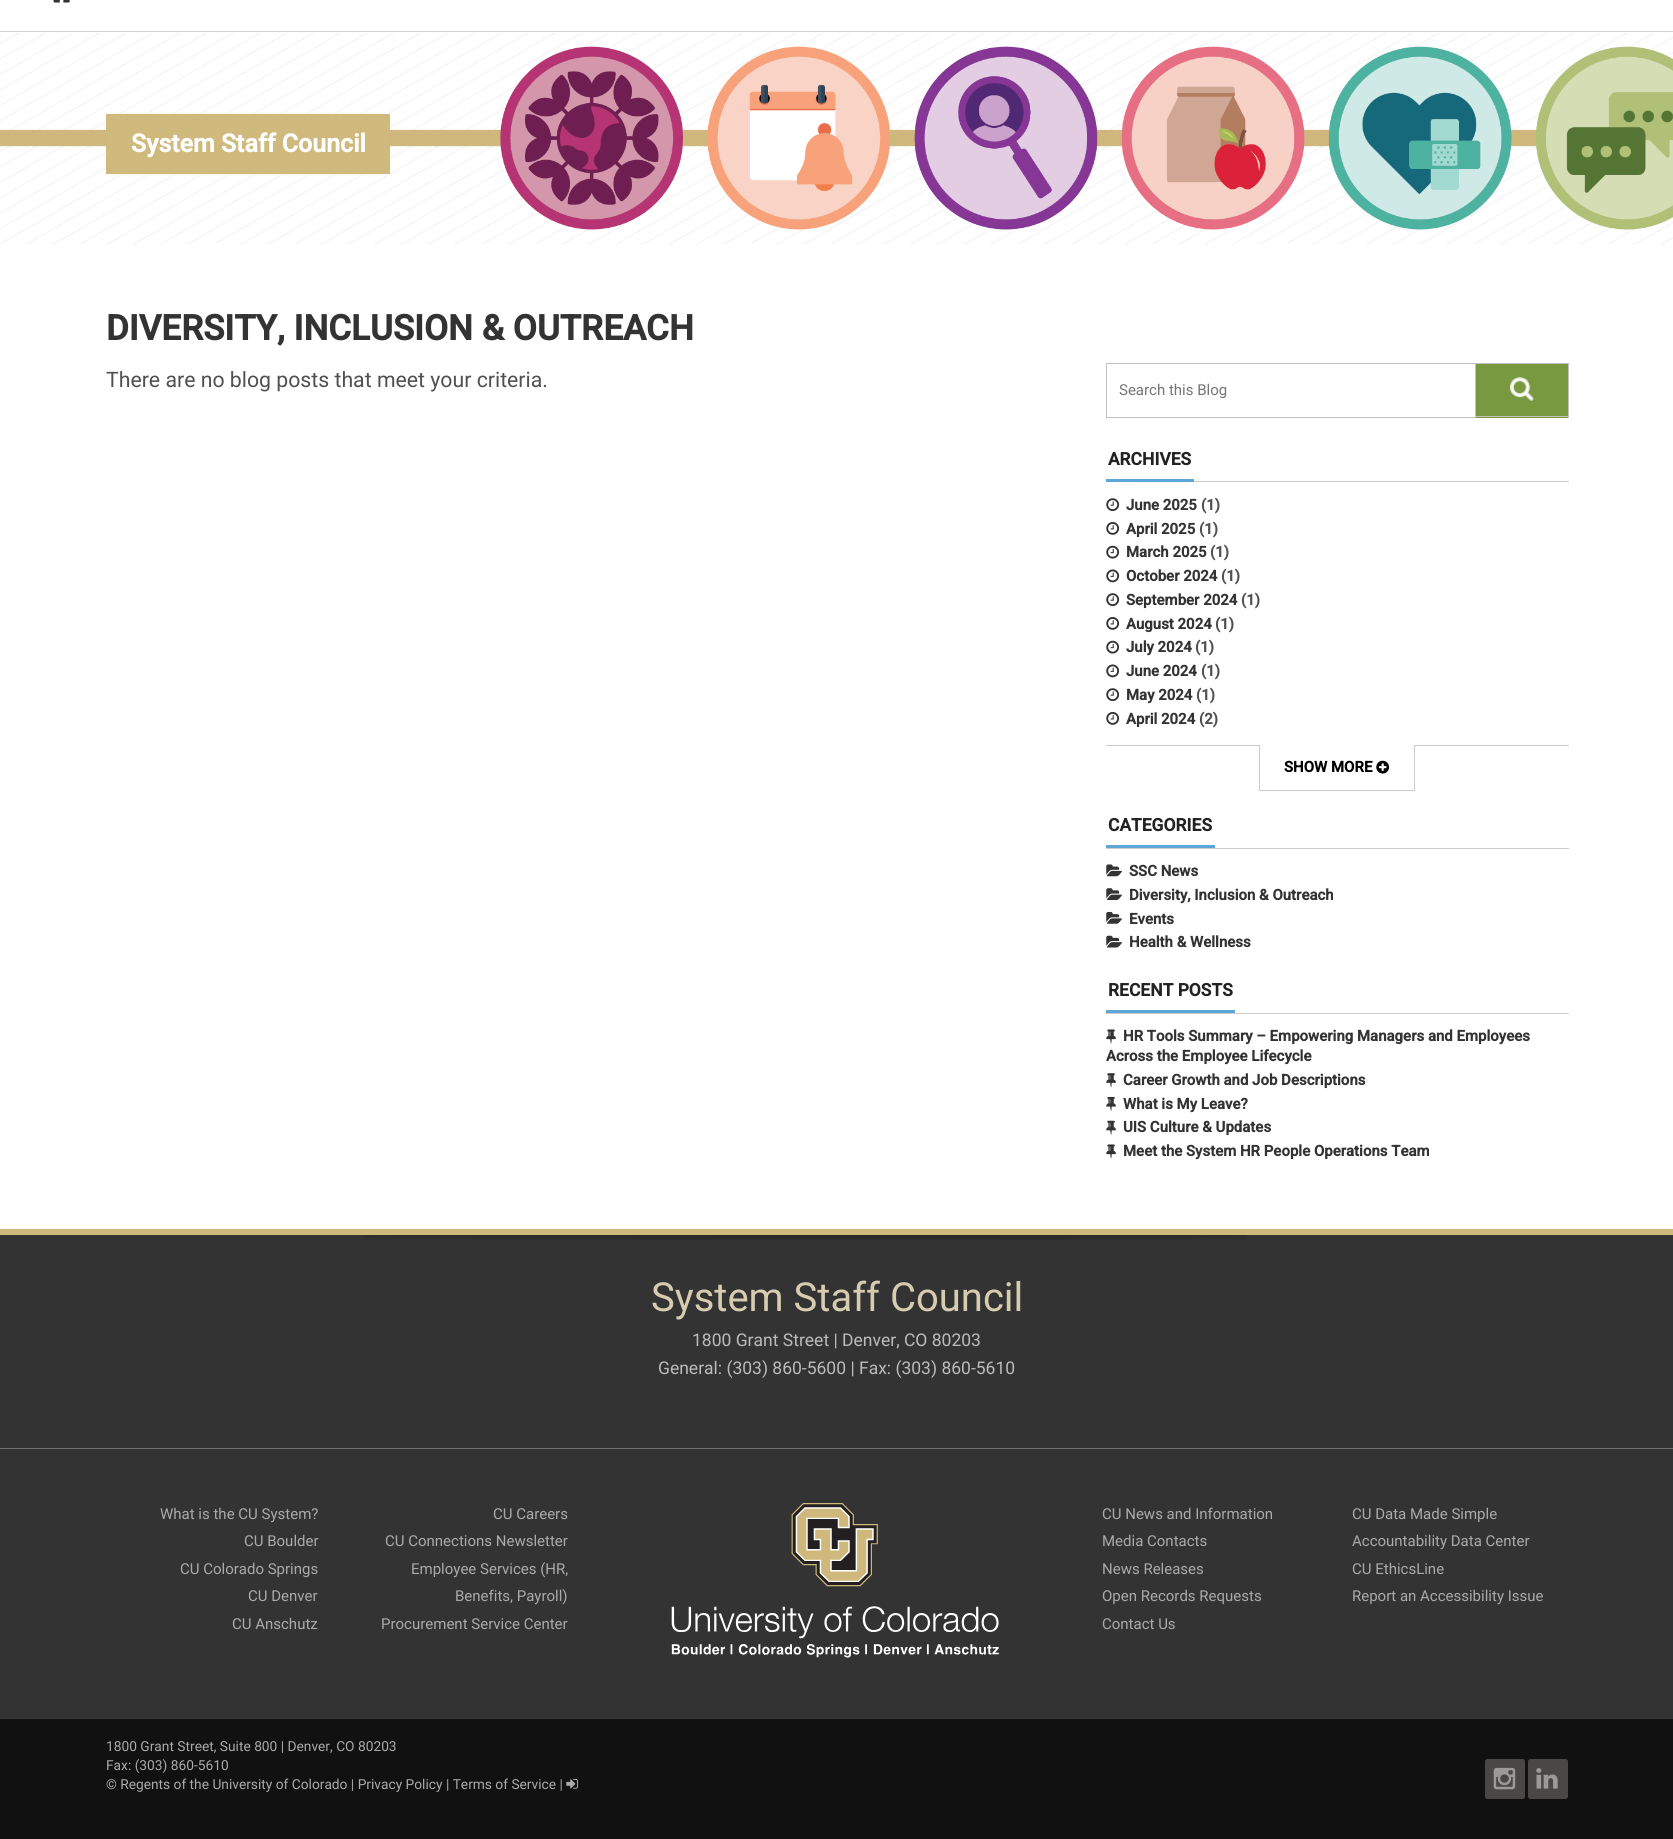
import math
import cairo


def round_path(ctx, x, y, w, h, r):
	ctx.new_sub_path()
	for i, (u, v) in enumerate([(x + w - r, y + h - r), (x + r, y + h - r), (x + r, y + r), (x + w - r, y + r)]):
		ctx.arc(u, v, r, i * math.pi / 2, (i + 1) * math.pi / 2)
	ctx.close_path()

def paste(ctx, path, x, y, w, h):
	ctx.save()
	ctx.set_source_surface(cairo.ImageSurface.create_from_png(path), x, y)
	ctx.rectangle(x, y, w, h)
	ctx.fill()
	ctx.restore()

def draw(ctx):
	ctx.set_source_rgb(1, 1, 1)
	ctx.paint()
	ctx.set_source_rgb(0.824, 0.827, 0.831)
	ctx.rectangle(0, 31, 1673, 1)
	ctx.fill()
	paste(ctx, 'media/1.png', 53, 0, 17, 3)
	paste(ctx, 'media/2.png', 0, 33, 1673, 212)
	ctx.set_source_rgb(0.812, 0.725, 0.49)
	ctx.rectangle(106, 114, 284, 60)
	ctx.fill()
	ctx.select_font_face('Roboto', cairo.FONT_SLANT_NORMAL, cairo.FONT_WEIGHT_BOLD)
	ctx.set_font_size(25)
	ctx.set_source_rgb(1, 1, 1)
	ctx.move_to(131, 152)
	ctx.show_text('System Staff Council')
	ctx.set_font_size(35)
	ctx.set_source_rgb(0.2, 0.2, 0.2)
	ctx.move_to(106, 340)
	ctx.show_text('DIVERSITY, INCLUSION & OUTREACH')
	ctx.select_font_face('Roboto')
	ctx.set_font_size(21.25)
	ctx.set_source_rgb(0.314, 0.314, 0.314)
	ctx.move_to(106, 387)
	ctx.show_text('There are no blog posts that meet your criteria.')
	ctx.rectangle(1106.5, 363.5, 369, 54)
	ctx.set_source_rgb(0.765, 0.765, 0.765)
	ctx.set_line_width(1)
	ctx.stroke()
	ctx.set_font_size(15)
	ctx.set_source_rgb(0.459, 0.459, 0.459)
	ctx.move_to(1119, 395)
	ctx.show_text('Search this Blog')
	ctx.set_source_rgb(0.471, 0.6, 0.251)
	ctx.rectangle(1476, 364, 92, 54)
	ctx.fill()
	paste(ctx, 'media/3.png', 1509, 376, 25, 25)
	ctx.set_source_rgb(0.765, 0.765, 0.765)
	ctx.rectangle(1476, 363, 93, 1)
	ctx.rectangle(1568, 363, 1, 55)
	ctx.rectangle(1476, 416, 93, 1)
	ctx.fill()
	ctx.set_source_rgb(0.8, 0.8, 0.8)
	ctx.rectangle(1194, 481, 375, 1)
	ctx.fill()
	ctx.set_source_rgb(0.361, 0.655, 0.843)
	ctx.rectangle(1106, 479, 88, 3)
	ctx.fill()
	ctx.select_font_face('Roboto', cairo.FONT_SLANT_NORMAL, cairo.FONT_WEIGHT_BOLD)
	ctx.set_font_size(17.5)
	ctx.set_source_rgb(0.133, 0.133, 0.133)
	ctx.move_to(1108, 465)
	ctx.show_text('ARCHIVES')
	paste(ctx, 'media/4.png', 1106, 498, 14, 14)
	ctx.set_font_size(15)
	ctx.set_source_rgb(0.2, 0.2, 0.2)
	ctx.move_to(1126, 510)
	ctx.show_text('June 2025')
	ctx.set_source_rgb(0.314, 0.314, 0.314)
	ctx.move_to(1201, 510)
	ctx.show_text('(1)')
	paste(ctx, 'media/5.png', 1106, 522, 14, 13)
	ctx.set_source_rgb(0.2, 0.2, 0.2)
	ctx.move_to(1126, 534)
	ctx.show_text('April 2025')
	ctx.set_source_rgb(0.314, 0.314, 0.314)
	ctx.move_to(1199, 534)
	ctx.show_text('(1)')
	paste(ctx, 'media/6.png', 1106, 545, 14, 14)
	ctx.set_source_rgb(0.2, 0.2, 0.2)
	ctx.move_to(1126, 557)
	ctx.show_text('March 2025')
	ctx.set_source_rgb(0.314, 0.314, 0.314)
	ctx.move_to(1210, 557)
	ctx.show_text('(1)')
	paste(ctx, 'media/7.png', 1106, 569, 14, 14)
	ctx.set_source_rgb(0.2, 0.2, 0.2)
	ctx.move_to(1126, 581)
	ctx.show_text('October 2024')
	ctx.set_source_rgb(0.314, 0.314, 0.314)
	ctx.move_to(1221, 581)
	ctx.show_text('(1)')
	paste(ctx, 'media/4.png', 1106, 593, 14, 14)
	ctx.set_source_rgb(0.2, 0.2, 0.2)
	ctx.move_to(1126, 605)
	ctx.show_text('September 2024')
	ctx.set_source_rgb(0.314, 0.314, 0.314)
	ctx.move_to(1241, 605)
	ctx.show_text('(1)')
	paste(ctx, 'media/5.png', 1106, 617, 14, 13)
	ctx.set_source_rgb(0.2, 0.2, 0.2)
	ctx.move_to(1126, 629)
	ctx.show_text('August 2024')
	ctx.set_source_rgb(0.314, 0.314, 0.314)
	ctx.move_to(1215, 629)
	ctx.show_text('(1)')
	paste(ctx, 'media/6.png', 1106, 640, 14, 14)
	ctx.set_source_rgb(0.2, 0.2, 0.2)
	ctx.move_to(1126, 652)
	ctx.show_text('July 2024')
	ctx.set_source_rgb(0.314, 0.314, 0.314)
	ctx.move_to(1195, 652)
	ctx.show_text('(1)')
	paste(ctx, 'media/7.png', 1106, 664, 14, 14)
	ctx.set_source_rgb(0.2, 0.2, 0.2)
	ctx.move_to(1126, 676)
	ctx.show_text('June 2024')
	ctx.set_source_rgb(0.314, 0.314, 0.314)
	ctx.move_to(1201, 676)
	ctx.show_text('(1)')
	paste(ctx, 'media/4.png', 1106, 688, 14, 14)
	ctx.set_source_rgb(0.2, 0.2, 0.2)
	ctx.move_to(1126, 700)
	ctx.show_text('May 2024')
	ctx.set_source_rgb(0.314, 0.314, 0.314)
	ctx.move_to(1196, 700)
	ctx.show_text('(1)')
	paste(ctx, 'media/5.png', 1106, 712, 14, 13)
	ctx.set_source_rgb(0.2, 0.2, 0.2)
	ctx.move_to(1126, 724)
	ctx.show_text('April 2024')
	ctx.set_source_rgb(0.314, 0.314, 0.314)
	ctx.move_to(1199, 724)
	ctx.show_text('(2)')
	ctx.set_source_rgb(0.8, 0.8, 0.8)
	ctx.rectangle(1106, 745, 463, 1)
	ctx.fill()
	ctx.set_source_rgb(1, 1, 1)
	ctx.rectangle(1260, 745, 154, 1)
	ctx.fill()
	ctx.set_source_rgb(0.8, 0.8, 0.8)
	ctx.rectangle(1414, 745, 1, 46)
	ctx.rectangle(1259, 790, 156, 1)
	ctx.rectangle(1259, 745, 1, 46)
	ctx.fill()
	ctx.set_source_rgb(0, 0, 0)
	ctx.move_to(1284, 772)
	ctx.show_text('SHOW MORE')
	paste(ctx, 'media/8.png', 1376, 760, 14, 14)
	ctx.set_source_rgb(0.8, 0.8, 0.8)
	ctx.rectangle(1106, 848, 463, 1)
	ctx.fill()
	ctx.set_source_rgb(0.361, 0.655, 0.843)
	ctx.rectangle(1106, 845, 109, 3)
	ctx.fill()
	ctx.set_font_size(17.5)
	ctx.set_source_rgb(0.133, 0.133, 0.133)
	ctx.move_to(1108, 831)
	ctx.show_text('CATEGORIES')
	paste(ctx, 'media/9.png', 1106, 864, 16, 13)
	ctx.set_font_size(15)
	ctx.set_source_rgb(0.2, 0.2, 0.2)
	ctx.move_to(1129, 876)
	ctx.show_text('SSC News')
	paste(ctx, 'media/10.png', 1106, 888, 16, 12)
	ctx.move_to(1129, 900)
	ctx.show_text('Diversity, Inclusion & Outreach')
	paste(ctx, 'media/11.png', 1106, 911, 16, 13)
	ctx.move_to(1129, 924)
	ctx.show_text('Events')
	paste(ctx, 'media/12.png', 1106, 935, 16, 13)
	ctx.move_to(1129, 947)
	ctx.show_text('Health & Wellness')
	ctx.set_source_rgb(0.8, 0.8, 0.8)
	ctx.rectangle(1106, 1013, 463, 1)
	ctx.fill()
	ctx.set_source_rgb(0.361, 0.655, 0.843)
	ctx.rectangle(1106, 1010, 129, 3)
	ctx.fill()
	ctx.set_font_size(17.5)
	ctx.set_source_rgb(0.133, 0.133, 0.133)
	ctx.move_to(1108, 996)
	ctx.show_text('RECENT POSTS')
	paste(ctx, 'media/13.png', 1106, 1029, 10, 15)
	ctx.set_font_size(15)
	ctx.set_source_rgb(0.2, 0.2, 0.2)
	ctx.move_to(1123, 1041)
	ctx.show_text('HR Tools Summary – Empowering Managers and Employees')
	ctx.move_to(1106, 1061)
	ctx.show_text('Across the Employee Lifecycle')
	paste(ctx, 'media/14.png', 1106, 1073, 10, 15)
	ctx.move_to(1123, 1085)
	ctx.show_text('Career Growth and Job Descriptions')
	paste(ctx, 'media/15.png', 1106, 1096, 10, 15)
	ctx.move_to(1123, 1109)
	ctx.show_text('What is My Leave?')
	paste(ctx, 'media/16.png', 1106, 1120, 10, 15)
	ctx.move_to(1123, 1132)
	ctx.show_text('UIS Culture & Updates')
	paste(ctx, 'media/13.png', 1106, 1144, 10, 15)
	ctx.move_to(1123, 1156)
	ctx.show_text('Meet the System HR People Operations Team')
	ctx.rectangle(0, 1235, 1673, 484)
	ctx.fill()
	paste(ctx, 'media/17.png', 364, 1235, 883, 5)
	ctx.set_source_rgb(0.812, 0.725, 0.49)
	ctx.rectangle(0, 1229, 1673, 6)
	ctx.fill()
	ctx.select_font_face('Roboto')
	ctx.set_font_size(40)
	ctx.set_source_rgb(0.843, 0.8, 0.686)
	ctx.move_to(651, 1311)
	ctx.show_text('System Staff Council')
	ctx.set_font_size(17.5)
	ctx.set_source_rgb(0.733, 0.733, 0.733)
	ctx.move_to(692, 1346)
	ctx.show_text('1800 Grant Street | Denver, CO 80203')
	ctx.move_to(658, 1374)
	ctx.show_text('General: (303) 860-5600 | Fax: (303) 860-5610')
	ctx.set_source_rgb(0.435, 0.435, 0.435)
	ctx.rectangle(0, 1448, 1673, 1)
	ctx.fill()
	ctx.set_font_size(15)
	ctx.set_source_rgb(0.667, 0.667, 0.667)
	for x, y, s in [
		(160, 1519, 'What is the CU System?'),
		(244, 1546, 'CU Boulder'),
		(180, 1574, 'CU Colorado Springs'),
		(248, 1601, 'CU Denver'),
		(232, 1629, 'CU Anschutz'),
		(493, 1519, 'CU Careers'),
		(385, 1546, 'CU Connections Newsletter'),
		(411, 1574, 'Employee Services (HR,'),
		(455, 1601, 'Benefits, Payroll)'),
		(381, 1629, 'Procurement Service Center'),
	]:
		ctx.move_to(x, y)
		ctx.show_text(s)
	paste(ctx, 'media/18.png', 671, 1503, 328, 155)
	for x, y, s in [
		(1102, 1519, 'CU News and Information'),
		(1102, 1546, 'Media Contacts'),
		(1102, 1574, 'News Releases'),
		(1102, 1601, 'Open Records Requests'),
		(1102, 1629, 'Contact Us'),
		(1352, 1519, 'CU Data Made Simple'),
		(1352, 1546, 'Accountability Data Center'),
		(1352, 1574, 'CU EthicsLine'),
		(1352, 1601, 'Report an Accessibility Issue'),
	]:
		ctx.move_to(x, y)
		ctx.show_text(s)
	ctx.set_source_rgb(0.067, 0.067, 0.067)
	ctx.rectangle(0, 1719, 1673, 120)
	ctx.fill()
	ctx.set_font_size(13.75)
	ctx.set_source_rgb(0.667, 0.667, 0.667)
	for x, y, s in [
		(106, 1751, '1800 Grant Street, Suite 800 | Denver, CO 80203'),
		(106, 1770, 'Fax: (303) 860-5610'),
		(106, 1789, '© Regents of the University of Colorado | Privacy Policy | Terms of Service |'),
	]:
		ctx.move_to(x, y)
		ctx.show_text(s)
	paste(ctx, 'media/19.png', 566, 1778, 13, 11)
	ctx.set_source_rgb(0.29, 0.282, 0.271)
	round_path(ctx, 1485, 1759, 40, 40, 2.5)
	ctx.fill()
	paste(ctx, 'media/20.png', 1493, 1767, 23, 23)
	round_path(ctx, 1528, 1759, 40, 40, 2.5)
	ctx.fill()
	paste(ctx, 'media/21.png', 1536, 1768, 22, 21)


surface = cairo.ImageSurface(cairo.FORMAT_RGB24, 1673, 1839)
ctx = cairo.Context(surface)
options = cairo.FontOptions()
options.set_hint_metrics(cairo.HINT_METRICS_OFF)
options.set_hint_style(cairo.HINT_STYLE_NONE)
ctx.set_font_options(options)
ctx.set_miter_limit(4)
draw(ctx)
surface.write_to_png('image.png')
